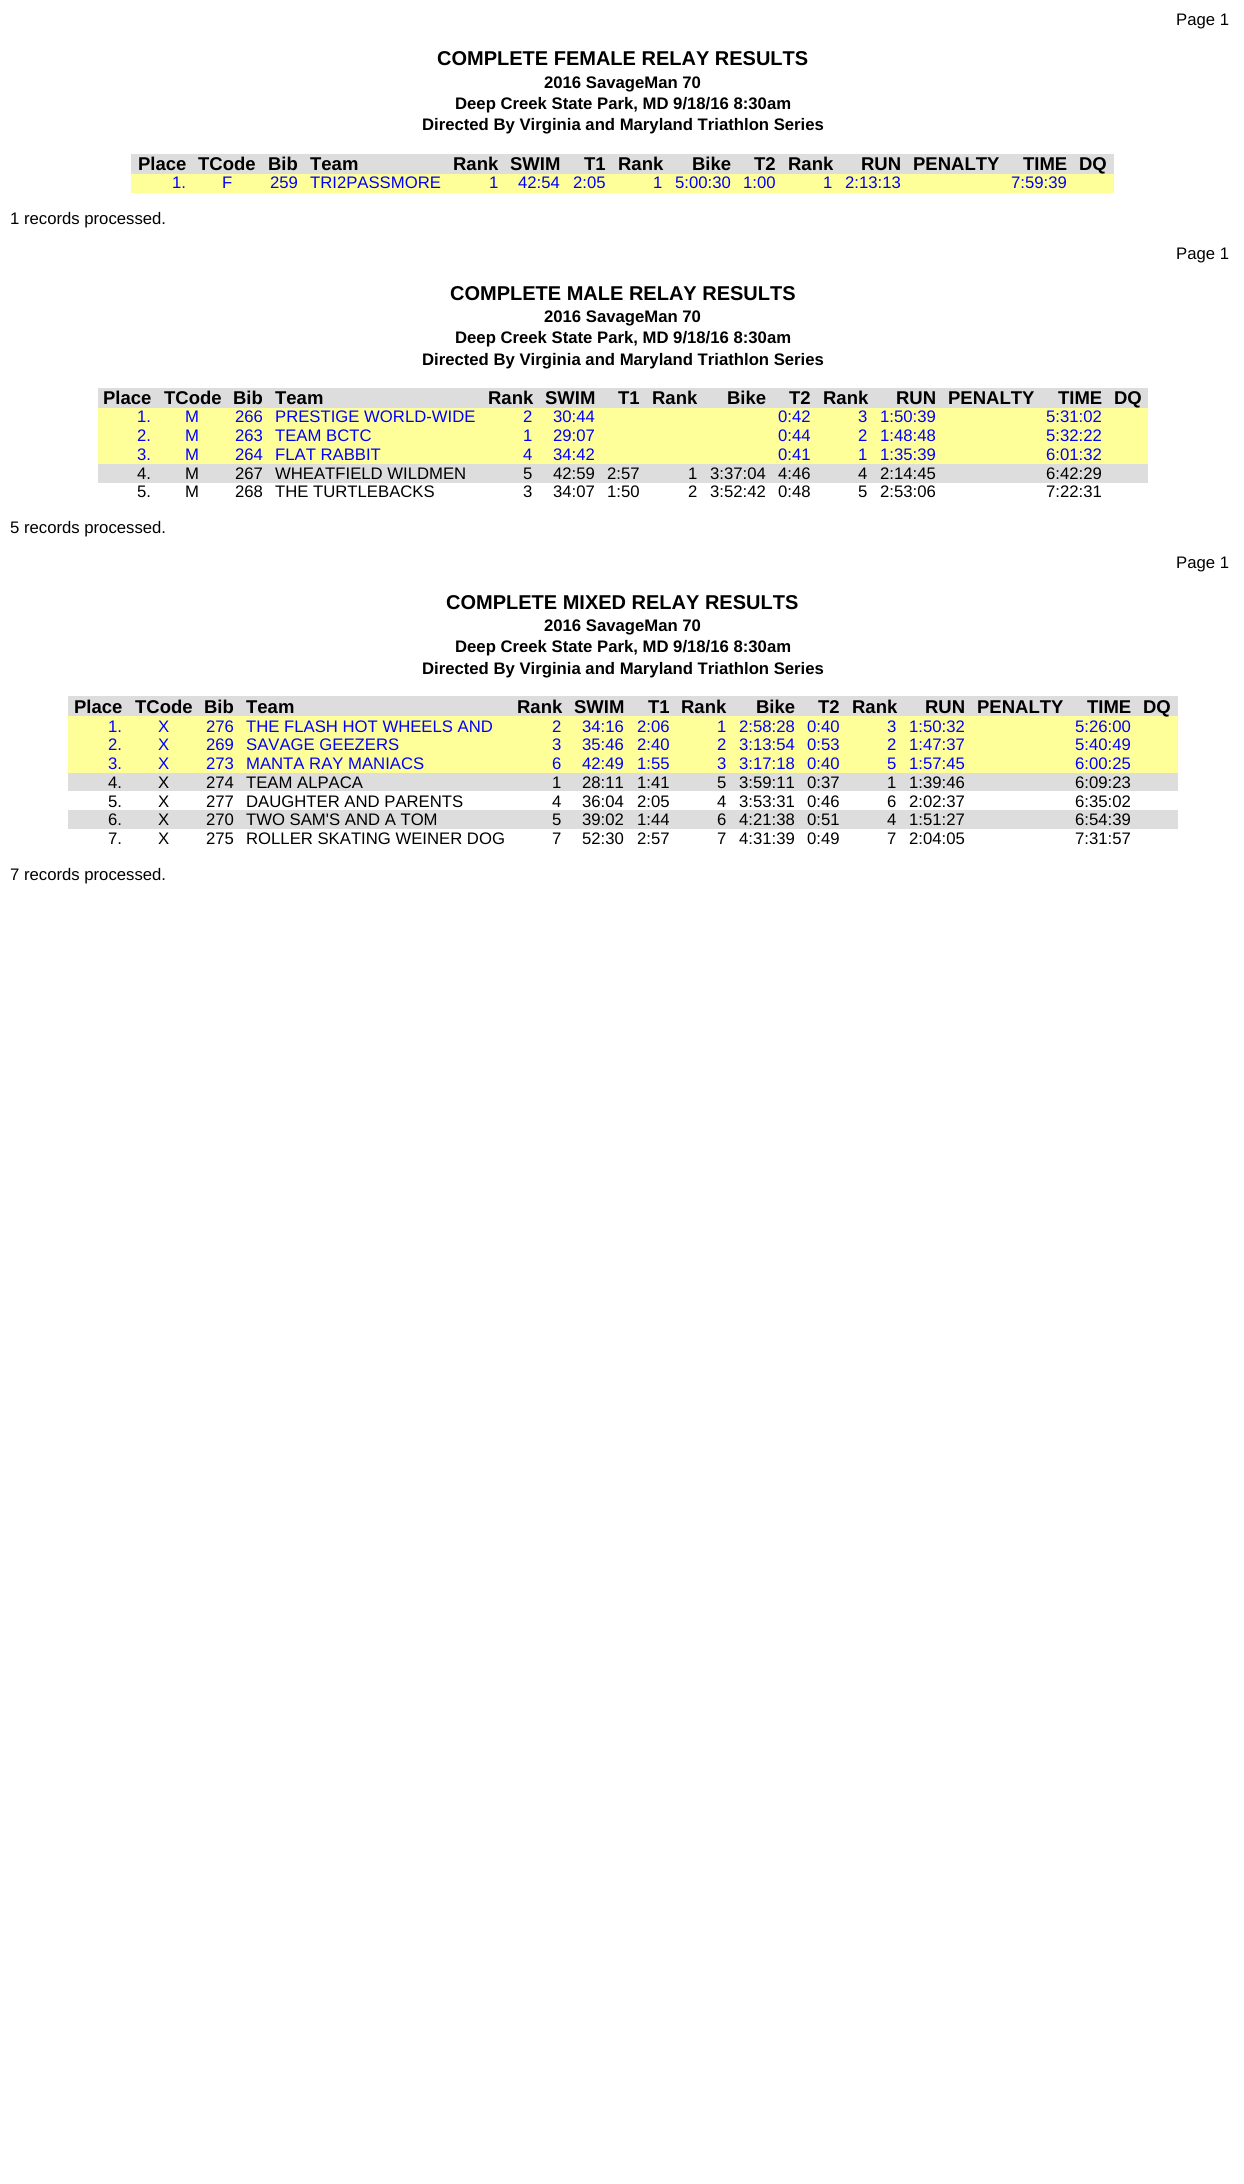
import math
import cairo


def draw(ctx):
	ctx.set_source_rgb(1, 1, 1)
	ctx.paint()
	ctx.select_font_face('Liberation Sans')
	ctx.set_font_size(16.7)
	ctx.set_source_rgb(0, 0, 0)
	ctx.move_to(1176, 25)
	ctx.show_text('Page 1')
	ctx.select_font_face('Liberation Sans', cairo.FONT_SLANT_NORMAL, cairo.FONT_WEIGHT_BOLD)
	ctx.set_font_size(20)
	ctx.move_to(437, 65)
	ctx.show_text('COMPLETE FEMALE RELAY RESULTS')
	ctx.set_font_size(16.7)
	for x, y, s in [
		(544, 88, '2016 SavageMan 70'),
		(455, 109, 'Deep Creek State Park, MD 9/18/16 8:30am'),
		(422, 130, 'Directed By Virginia and Maryland Triathlon Series'),
	]:
		ctx.move_to(x, y)
		ctx.show_text(s)
	ctx.set_source_rgb(0.867, 0.867, 0.867)
	ctx.rectangle(131, 154, 983, 20)
	ctx.fill()
	ctx.set_font_size(18.5)
	ctx.set_source_rgb(0, 0, 0)
	for x, y, s in [
		(138, 170, 'Place'),
		(198, 170, 'TCode'),
		(268, 170, 'Bib'),
		(310, 170, 'Team'),
		(453, 170, 'Rank'),
		(510, 170, 'SWIM'),
		(584, 170, 'T1'),
		(618, 170, 'Rank'),
		(692, 170, 'Bike'),
		(754, 170, 'T2'),
		(788, 170, 'Rank'),
		(861, 170, 'RUN'),
		(913, 170, 'PENALTY'),
		(1023, 170, 'TIME'),
		(1079, 170, 'DQ'),
	]:
		ctx.move_to(x, y)
		ctx.show_text(s)
	ctx.set_source_rgb(1, 1, 0.6)
	ctx.rectangle(131, 174, 983, 19)
	ctx.fill()
	ctx.select_font_face('Liberation Sans')
	ctx.set_font_size(16.7)
	ctx.set_source_rgb(0, 0, 1)
	for x, y, s in [
		(172, 188, '1.'),
		(222, 188, 'F'),
		(270, 188, '259'),
		(310, 188, 'TRI2PASSMORE'),
		(489, 188, '1'),
		(518, 188, '42:54'),
		(573, 188, '2:05'),
		(653, 188, '1'),
		(675, 188, '5:00:30'),
		(743, 188, '1:00'),
		(823, 188, '1'),
		(845, 188, '2:13:13'),
		(1011, 188, '7:59:39'),
	]:
		ctx.move_to(x, y)
		ctx.show_text(s)
	ctx.set_source_rgb(0, 0, 0)
	ctx.move_to(10, 224)
	ctx.show_text('1 records processed.')
	ctx.move_to(1176, 259)
	ctx.show_text('Page 1')
	ctx.select_font_face('Liberation Sans', cairo.FONT_SLANT_NORMAL, cairo.FONT_WEIGHT_BOLD)
	ctx.set_font_size(20)
	ctx.move_to(450, 300)
	ctx.show_text('COMPLETE MALE RELAY RESULTS')
	ctx.set_font_size(16.7)
	for x, y, s in [
		(544, 322, '2016 SavageMan 70'),
		(455, 343, 'Deep Creek State Park, MD 9/18/16 8:30am'),
		(422, 365, 'Directed By Virginia and Maryland Triathlon Series'),
	]:
		ctx.move_to(x, y)
		ctx.show_text(s)
	ctx.set_source_rgb(0.867, 0.867, 0.867)
	ctx.rectangle(98, 388, 1050, 20)
	ctx.fill()
	ctx.set_font_size(18.5)
	ctx.set_source_rgb(0, 0, 0)
	for x, y, s in [
		(103, 404, 'Place'),
		(164, 404, 'TCode'),
		(233, 404, 'Bib'),
		(275, 404, 'Team'),
		(488, 404, 'Rank'),
		(545, 404, 'SWIM'),
		(618, 404, 'T1'),
		(652, 404, 'Rank'),
		(727, 404, 'Bike'),
		(789, 404, 'T2'),
		(823, 404, 'Rank'),
		(896, 404, 'RUN'),
		(948, 404, 'PENALTY'),
		(1058, 404, 'TIME'),
		(1114, 404, 'DQ'),
	]:
		ctx.move_to(x, y)
		ctx.show_text(s)
	ctx.set_source_rgb(1, 1, 0.6)
	ctx.rectangle(98, 408, 1050, 18)
	ctx.fill()
	ctx.select_font_face('Liberation Sans')
	ctx.set_font_size(16.7)
	ctx.set_source_rgb(0, 0, 1)
	for x, y, s in [
		(137, 422, '1.'),
		(185, 422, 'M'),
		(235, 422, '266'),
		(275, 422, 'PRESTIGE WORLD-WIDE'),
		(523, 422, '2'),
		(553, 422, '30:44'),
		(778, 422, '0:42'),
		(858, 422, '3'),
		(880, 422, '1:50:39'),
		(1046, 422, '5:31:02'),
	]:
		ctx.move_to(x, y)
		ctx.show_text(s)
	ctx.set_source_rgb(1, 1, 0.6)
	ctx.rectangle(98, 426, 1050, 19)
	ctx.fill()
	ctx.set_source_rgb(0, 0, 1)
	for x, y, s in [
		(137, 441, '2.'),
		(185, 441, 'M'),
		(235, 441, '263'),
		(275, 441, 'TEAM BCTC'),
		(523, 441, '1'),
		(553, 441, '29:07'),
		(778, 441, '0:44'),
		(858, 441, '2'),
		(880, 441, '1:48:48'),
		(1046, 441, '5:32:22'),
	]:
		ctx.move_to(x, y)
		ctx.show_text(s)
	ctx.set_source_rgb(1, 1, 0.6)
	ctx.rectangle(98, 445, 1050, 19)
	ctx.fill()
	ctx.set_source_rgb(0, 0, 1)
	for x, y, s in [
		(137, 460, '3.'),
		(185, 460, 'M'),
		(235, 460, '264'),
		(275, 460, 'FLAT RABBIT'),
		(523, 460, '4'),
		(553, 460, '34:42'),
		(778, 460, '0:41'),
		(858, 460, '1'),
		(880, 460, '1:35:39'),
		(1046, 460, '6:01:32'),
	]:
		ctx.move_to(x, y)
		ctx.show_text(s)
	ctx.set_source_rgb(0.867, 0.867, 0.867)
	ctx.rectangle(98, 464, 1050, 19)
	ctx.fill()
	ctx.set_source_rgb(0, 0, 0)
	for x, y, s in [
		(137, 479, '4.'),
		(185, 479, 'M'),
		(235, 479, '267'),
		(275, 479, 'WHEATFIELD WILDMEN'),
		(523, 479, '5'),
		(553, 479, '42:59'),
		(607, 479, '2:57'),
		(688, 479, '1'),
		(710, 479, '3:37:04'),
		(778, 479, '4:46'),
		(858, 479, '4'),
		(880, 479, '2:14:45'),
		(1046, 479, '6:42:29'),
		(137, 497, '5.'),
		(185, 497, 'M'),
		(235, 497, '268'),
		(275, 497, 'THE TURTLEBACKS'),
		(523, 497, '3'),
		(553, 497, '34:07'),
		(607, 497, '1:50'),
		(688, 497, '2'),
		(710, 497, '3:52:42'),
		(778, 497, '0:48'),
		(858, 497, '5'),
		(880, 497, '2:53:06'),
		(1046, 497, '7:22:31'),
		(10, 533, '5 records processed.'),
		(1176, 568, 'Page 1'),
	]:
		ctx.move_to(x, y)
		ctx.show_text(s)
	ctx.select_font_face('Liberation Sans', cairo.FONT_SLANT_NORMAL, cairo.FONT_WEIGHT_BOLD)
	ctx.set_font_size(20)
	ctx.move_to(446, 609)
	ctx.show_text('COMPLETE MIXED RELAY RESULTS')
	ctx.set_font_size(16.7)
	for x, y, s in [
		(544, 631, '2016 SavageMan 70'),
		(455, 652, 'Deep Creek State Park, MD 9/18/16 8:30am'),
		(422, 674, 'Directed By Virginia and Maryland Triathlon Series'),
	]:
		ctx.move_to(x, y)
		ctx.show_text(s)
	ctx.set_source_rgb(0.867, 0.867, 0.867)
	ctx.rectangle(68, 696, 1110, 20)
	ctx.fill()
	ctx.set_font_size(18.5)
	ctx.set_source_rgb(0, 0, 0)
	for x, y, s in [
		(74, 713, 'Place'),
		(135, 713, 'TCode'),
		(204, 713, 'Bib'),
		(246, 713, 'Team'),
		(517, 713, 'Rank'),
		(574, 713, 'SWIM'),
		(648, 713, 'T1'),
		(681, 713, 'Rank'),
		(756, 713, 'Bike'),
		(818, 713, 'T2'),
		(852, 713, 'Rank'),
		(925, 713, 'RUN'),
		(977, 713, 'PENALTY'),
		(1087, 713, 'TIME'),
	]:
		ctx.move_to(x, y)
		ctx.show_text(s)
	ctx.set_source_rgb(1, 1, 0.6)
	ctx.rectangle(68, 716, 1110, 19)
	ctx.fill()
	ctx.set_source_rgb(0, 0, 0)
	ctx.move_to(1143, 713)
	ctx.show_text('DQ')
	ctx.select_font_face('Liberation Sans')
	ctx.set_font_size(16.7)
	ctx.set_source_rgb(0, 0, 1)
	for x, y, s in [
		(108, 732, '1.'),
		(158, 732, 'X'),
		(206, 732, '276'),
		(246, 732, 'THE FLASH HOT WHEELS AND'),
		(552, 732, '2'),
		(582, 732, '34:16'),
		(637, 732, '2:06'),
		(717, 732, '1'),
		(739, 732, '2:58:28'),
		(807, 732, '0:40'),
		(887, 732, '3'),
		(909, 732, '1:50:32'),
		(1075, 732, '5:26:00'),
	]:
		ctx.move_to(x, y)
		ctx.show_text(s)
	ctx.set_source_rgb(1, 1, 0.6)
	ctx.rectangle(68, 735, 1110, 19)
	ctx.fill()
	ctx.set_source_rgb(0, 0, 1)
	for x, y, s in [
		(108, 750, '2.'),
		(158, 750, 'X'),
		(206, 750, '269'),
		(246, 750, 'SAVAGE GEEZERS'),
		(552, 750, '3'),
		(582, 750, '35:46'),
		(637, 750, '2:40'),
		(717, 750, '2'),
		(739, 750, '3:13:54'),
		(807, 750, '0:53'),
		(887, 750, '2'),
		(909, 750, '1:47:37'),
		(1075, 750, '5:40:49'),
	]:
		ctx.move_to(x, y)
		ctx.show_text(s)
	ctx.set_source_rgb(1, 1, 0.6)
	ctx.rectangle(68, 754, 1110, 19)
	ctx.fill()
	ctx.set_source_rgb(0, 0, 1)
	for x, y, s in [
		(108, 769, '3.'),
		(158, 769, 'X'),
		(206, 769, '273'),
		(246, 769, 'MANTA RAY MANIACS'),
		(552, 769, '6'),
		(582, 769, '42:49'),
		(637, 769, '1:55'),
		(717, 769, '3'),
		(739, 769, '3:17:18'),
		(807, 769, '0:40'),
		(887, 769, '5'),
		(909, 769, '1:57:45'),
		(1075, 769, '6:00:25'),
	]:
		ctx.move_to(x, y)
		ctx.show_text(s)
	ctx.set_source_rgb(0.867, 0.867, 0.867)
	ctx.rectangle(68, 773, 1110, 18)
	ctx.fill()
	ctx.set_source_rgb(0, 0, 0)
	for x, y, s in [
		(108, 788, '4.'),
		(158, 788, 'X'),
		(206, 788, '274'),
		(246, 788, 'TEAM ALPACA'),
		(552, 788, '1'),
		(582, 788, '28:11'),
		(637, 788, '1:41'),
		(717, 788, '5'),
		(739, 788, '3:59:11'),
		(807, 788, '0:37'),
		(887, 788, '1'),
		(909, 788, '1:39:46'),
		(1075, 788, '6:09:23'),
		(108, 807, '5.'),
		(158, 807, 'X'),
		(206, 807, '277'),
		(246, 807, 'DAUGHTER AND PARENTS'),
		(552, 807, '4'),
		(582, 807, '36:04'),
		(637, 807, '2:05'),
		(717, 807, '4'),
		(739, 807, '3:53:31'),
		(807, 807, '0:46'),
		(887, 807, '6'),
		(909, 807, '2:02:37'),
		(1075, 807, '6:35:02'),
	]:
		ctx.move_to(x, y)
		ctx.show_text(s)
	ctx.set_source_rgb(0.867, 0.867, 0.867)
	ctx.rectangle(68, 810, 1110, 19)
	ctx.fill()
	ctx.set_source_rgb(0, 0, 0)
	for x, y, s in [
		(108, 825, '6.'),
		(158, 825, 'X'),
		(206, 825, '270'),
		(246, 825, 'TWO SAM\'S AND A TOM'),
		(552, 825, '5'),
		(582, 825, '39:02'),
		(637, 825, '1:44'),
		(717, 825, '6'),
		(739, 825, '4:21:38'),
		(807, 825, '0:51'),
		(887, 825, '4'),
		(909, 825, '1:51:27'),
		(1075, 825, '6:54:39'),
		(108, 844, '7.'),
		(158, 844, 'X'),
		(206, 844, '275'),
		(246, 844, 'ROLLER SKATING WEINER DOG'),
		(552, 844, '7'),
		(582, 844, '52:30'),
		(637, 844, '2:57'),
		(717, 844, '7'),
		(739, 844, '4:31:39'),
		(807, 844, '0:49'),
		(887, 844, '7'),
		(909, 844, '2:04:05'),
		(1075, 844, '7:31:57'),
		(10, 880, '7 records processed.'),
	]:
		ctx.move_to(x, y)
		ctx.show_text(s)


surface = cairo.ImageSurface(cairo.FORMAT_RGB24, 1244, 2184)
ctx = cairo.Context(surface)
options = cairo.FontOptions()
options.set_hint_metrics(cairo.HINT_METRICS_OFF)
options.set_hint_style(cairo.HINT_STYLE_NONE)
ctx.set_font_options(options)
ctx.set_miter_limit(4)
draw(ctx)
surface.write_to_png('image.png')
